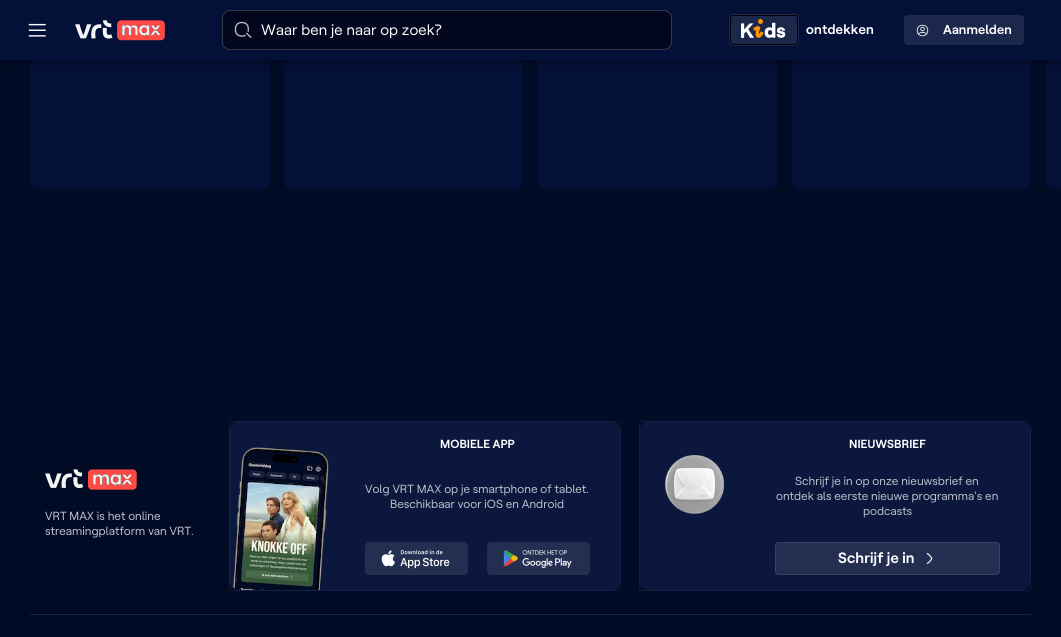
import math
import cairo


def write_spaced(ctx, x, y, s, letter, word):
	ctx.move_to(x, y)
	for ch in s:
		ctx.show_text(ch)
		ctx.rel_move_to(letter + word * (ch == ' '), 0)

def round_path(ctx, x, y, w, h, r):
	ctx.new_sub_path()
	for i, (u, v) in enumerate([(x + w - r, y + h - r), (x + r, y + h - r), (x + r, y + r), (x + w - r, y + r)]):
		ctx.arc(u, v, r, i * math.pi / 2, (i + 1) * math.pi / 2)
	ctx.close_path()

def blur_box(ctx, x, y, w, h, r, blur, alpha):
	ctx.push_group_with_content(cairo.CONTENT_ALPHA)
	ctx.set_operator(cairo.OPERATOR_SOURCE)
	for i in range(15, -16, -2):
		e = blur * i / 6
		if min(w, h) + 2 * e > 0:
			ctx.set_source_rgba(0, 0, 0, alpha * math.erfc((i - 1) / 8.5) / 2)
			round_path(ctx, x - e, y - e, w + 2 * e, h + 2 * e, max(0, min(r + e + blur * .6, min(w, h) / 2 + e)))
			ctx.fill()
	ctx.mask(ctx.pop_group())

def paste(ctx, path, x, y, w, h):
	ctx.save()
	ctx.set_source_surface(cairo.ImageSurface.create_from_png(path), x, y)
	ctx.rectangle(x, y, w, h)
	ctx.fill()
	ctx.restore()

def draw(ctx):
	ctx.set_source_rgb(0.008, 0.043, 0.149)
	ctx.paint()
	ctx.set_source_rgb(0.012, 0.063, 0.216)
	round_path(ctx, 30, -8, 239, 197, 8)
	ctx.fill()
	round_path(ctx, 284, -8, 239, 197, 8)
	ctx.fill()
	round_path(ctx, 538, -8, 239, 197, 8)
	ctx.fill()
	round_path(ctx, 792, -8, 239, 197, 8)
	ctx.fill()
	ctx.new_path()
	ctx.move_to(1054, -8)
	ctx.line_to(1061, -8)
	ctx.line_to(1061, 189)
	ctx.line_to(1054, 189)
	ctx.curve_to(1049.5, 189, 1046, 185.5, 1046, 181)
	ctx.line_to(1046, 0)
	ctx.curve_to(1046, -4.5, 1049.5, -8, 1054, -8)
	ctx.close_path()
	ctx.fill()
	ctx.set_source_rgb(0, 0, 0)
	blur_box(ctx, 4, 57, 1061, 7, 0, 4, 0.3)
	ctx.set_source_rgb(0.012, 0.063, 0.216)
	ctx.rectangle(0, 0, 1061, 60)
	ctx.fill()
	paste(ctx, 'media/1.png', 28, 23, 18, 14)
	paste(ctx, 'media/2.png', 75, 20, 90, 21)
	ctx.set_source_rgb(0.008, 0.031, 0.114)
	round_path(ctx, 222, 10, 450, 40, 8)
	ctx.fill()
	round_path(ctx, 222.5, 10.5, 449, 39, 7.5)
	ctx.set_source_rgba(1, 1, 1, 0.2)
	ctx.set_line_width(1)
	ctx.stroke()
	paste(ctx, 'media/3.png', 234, 21, 18, 17)
	ctx.select_font_face('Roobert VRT')
	ctx.set_font_size(15)
	ctx.set_source_rgb(1, 1, 1)
	write_spaced(ctx, 261, 35, 'Waar ben je naar op zoek?', 0.1, 0)
	ctx.set_source_rgb(0.11, 0.157, 0.294)
	round_path(ctx, 729, 14, 70, 32, 4)
	ctx.fill()
	round_path(ctx, 730.5, 15.5, 67, 29, 2.5)
	ctx.set_source_rgb(0, 0, 0)
	ctx.stroke()
	paste(ctx, 'media/4.png', 741, 19, 45, 19)
	ctx.select_font_face('Roobert VRT SemiBold')
	ctx.set_font_size(13.5)
	ctx.set_source_rgb(1, 1, 1)
	write_spaced(ctx, 806, 34, 'ontdekken', 0.1, 0)
	ctx.set_source_rgb(0.11, 0.157, 0.294)
	round_path(ctx, 904, 15, 120, 30, 4)
	ctx.fill()
	paste(ctx, 'media/5.png', 916, 24, 13, 13)
	ctx.set_font_size(13)
	ctx.set_source_rgb(1, 1, 1)
	write_spaced(ctx, 943, 34, 'Aanmelden', 0.1, 0)
	paste(ctx, 'media/6.png', 45, 469, 92, 21)
	ctx.select_font_face('Roobert VRT')
	ctx.set_font_size(11.8)
	ctx.set_source_rgb(0.753, 0.765, 0.804)
	ctx.move_to(45, 520)
	ctx.show_text('VRT MAX is het online')
	ctx.move_to(45, 535)
	ctx.show_text('streamingplatform van VRT.')
	ctx.set_source_rgb(0.043, 0.09, 0.239)
	round_path(ctx, 229, 421, 392, 170, 11)
	ctx.fill()
	ctx.rectangle(229.5, 421.5, 391, 169)
	ctx.set_source_rgba(1, 1, 1, 0.05)
	ctx.stroke()
	paste(ctx, 'media/7.png', 233, 442, 96, 148)
	ctx.select_font_face('Roobert VRT SemiBold')
	ctx.set_source_rgb(1, 1, 1)
	ctx.move_to(440, 448)
	ctx.show_text('MOBIELE APP')
	ctx.select_font_face('Roobert VRT')
	ctx.set_source_rgb(0.753, 0.765, 0.804)
	ctx.move_to(365, 493)
	ctx.show_text('Volg VRT MAX op je smartphone of tablet.')
	ctx.move_to(390, 508)
	ctx.show_text('Beschikbaar voor iOS en Android')
	ctx.set_source_rgb(0.137, 0.18, 0.314)
	round_path(ctx, 365, 542, 103, 33, 4)
	ctx.fill()
	paste(ctx, 'media/8.png', 381, 549, 69, 20)
	round_path(ctx, 487, 542, 103, 33, 4)
	ctx.fill()
	paste(ctx, 'media/9.png', 503, 550, 69, 18)
	ctx.set_source_rgb(0.043, 0.09, 0.239)
	round_path(ctx, 639, 421, 392, 170, 11)
	ctx.fill()
	ctx.rectangle(639.5, 421.5, 391, 169)
	ctx.set_source_rgba(1, 1, 1, 0.05)
	ctx.stroke()
	paste(ctx, 'media/10.png', 665, 455, 59, 60)
	ctx.select_font_face('Roobert VRT SemiBold')
	ctx.set_source_rgb(1, 1, 1)
	ctx.move_to(849, 448)
	ctx.show_text('NIEUWSBRIEF')
	ctx.select_font_face('Roobert VRT')
	ctx.set_source_rgb(0.753, 0.765, 0.804)
	for x, y, s in [
		(795, 485, 'Schrijf je in op onze nieuwsbrief en'),
		(776, 500, 'ontdek als eerste nieuwe programma\'s en'),
		(863, 515, 'podcasts'),
	]:
		ctx.move_to(x, y)
		ctx.show_text(s)
	ctx.set_source_rgb(0.137, 0.18, 0.314)
	round_path(ctx, 775, 542, 225, 33, 4)
	ctx.fill()
	round_path(ctx, 775.5, 542.5, 224, 32, 3.5)
	ctx.set_source_rgba(1, 1, 1, 0.1)
	ctx.stroke()
	ctx.select_font_face('Roobert VRT SemiBold')
	ctx.set_font_size(15)
	ctx.set_source_rgb(1, 1, 1)
	write_spaced(ctx, 838, 563, 'Schrijf je in', 0.1, 0)
	paste(ctx, 'media/11.png', 926, 553, 7, 11)
	ctx.set_source_rgb(0.106, 0.137, 0.235)
	ctx.rectangle(30, 614, 1001, 1)
	ctx.fill()


surface = cairo.ImageSurface(cairo.FORMAT_RGB24, 1061, 637)
ctx = cairo.Context(surface)
options = cairo.FontOptions()
options.set_hint_metrics(cairo.HINT_METRICS_OFF)
options.set_hint_style(cairo.HINT_STYLE_NONE)
ctx.set_font_options(options)
ctx.set_miter_limit(4)
draw(ctx)
surface.write_to_png('image.png')
